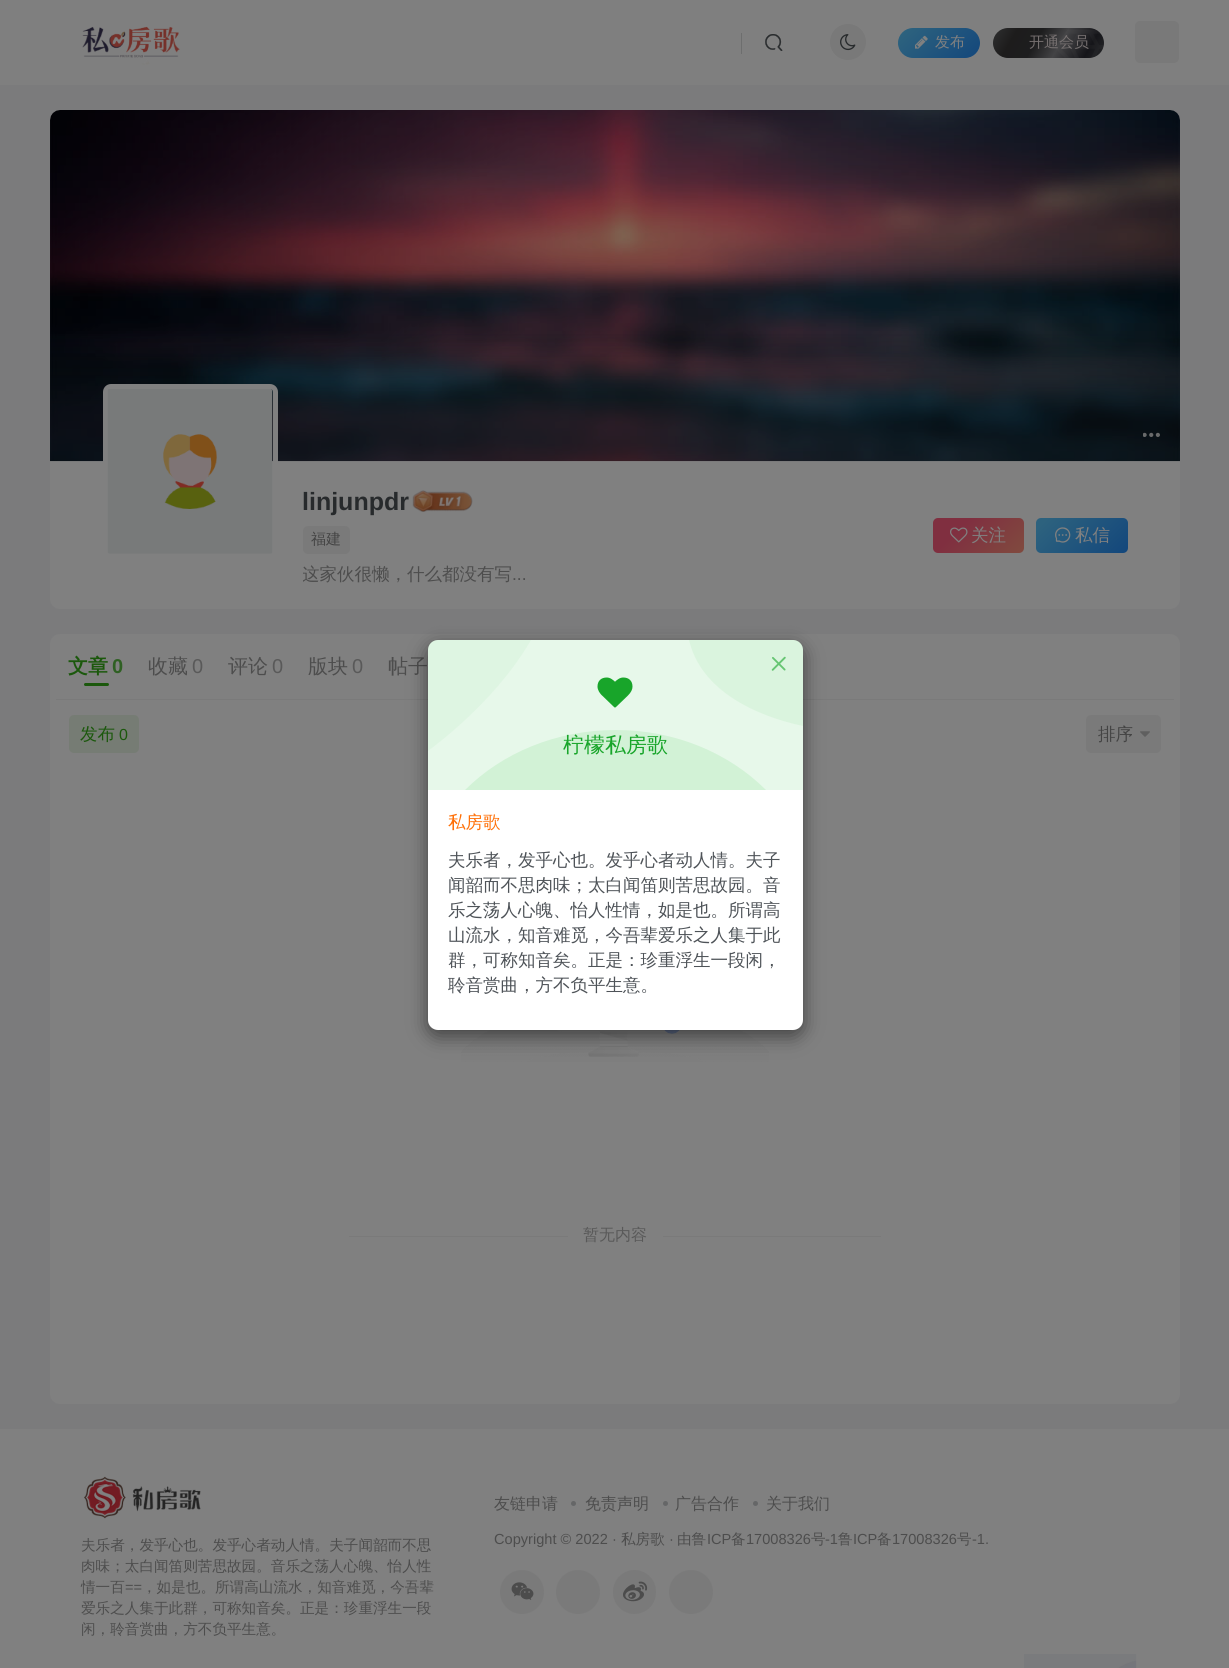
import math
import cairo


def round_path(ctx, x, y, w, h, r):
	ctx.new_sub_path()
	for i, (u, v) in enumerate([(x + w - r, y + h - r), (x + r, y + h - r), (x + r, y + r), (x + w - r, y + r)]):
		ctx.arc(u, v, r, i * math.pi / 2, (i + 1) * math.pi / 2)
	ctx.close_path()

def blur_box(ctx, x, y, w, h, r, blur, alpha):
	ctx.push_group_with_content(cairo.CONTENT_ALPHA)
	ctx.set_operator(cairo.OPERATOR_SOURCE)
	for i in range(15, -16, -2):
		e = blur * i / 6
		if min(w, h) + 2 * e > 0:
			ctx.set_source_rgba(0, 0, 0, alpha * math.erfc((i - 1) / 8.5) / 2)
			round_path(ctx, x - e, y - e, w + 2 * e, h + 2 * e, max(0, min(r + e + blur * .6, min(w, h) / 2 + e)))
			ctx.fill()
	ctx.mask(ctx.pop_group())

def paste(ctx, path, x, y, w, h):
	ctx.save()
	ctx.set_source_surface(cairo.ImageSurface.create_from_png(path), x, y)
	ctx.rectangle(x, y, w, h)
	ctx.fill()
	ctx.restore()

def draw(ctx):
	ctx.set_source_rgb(0.482, 0.482, 0.486)
	ctx.paint()
	ctx.set_source_rgb(0.498, 0.498, 0.498)
	ctx.rectangle(0, 0, 1229, 85)
	ctx.fill()
	paste(ctx, 'media/1.png', 82, 26, 98, 39)
	ctx.set_source_rgb(0.427, 0.431, 0.431)
	ctx.rectangle(741, 33, 1, 21)
	ctx.fill()
	paste(ctx, 'media/2.png', 765, 34, 18, 17)
	ctx.set_source_rgb(0.475, 0.475, 0.475)
	ctx.arc(848, 42, 18, 0, 2 * math.pi)
	ctx.fill()
	paste(ctx, 'media/3.png', 840, 34, 16, 17)
	gradient = cairo.LinearGradient(911, 14, 967, 71)
	gradient.add_color_stop_rgba(0.1, 0.176, 0.384, 0.494, 1)
	gradient.add_color_stop_rgba(1, 0.075, 0.278, 0.486, 1)
	ctx.set_source(gradient)
	round_path(ctx, 898, 28, 82, 30, 15)
	ctx.fill()
	paste(ctx, 'media/4.png', 915, 35, 13, 14)
	ctx.select_font_face('WenQuanYi Zen Hei Medium')
	ctx.set_font_size(15)
	ctx.set_source_rgb(0.502, 0.502, 0.502)
	ctx.move_to(935, 47)
	ctx.show_text('发布')
	gradient = cairo.LinearGradient(1096, 70, 1000, 15)
	gradient.add_color_stop_rgba(0, 0.149, 0.153, 0.161, 1)
	gradient.add_color_stop_rgba(0.15, 0.082, 0.082, 0.098, 1)
	gradient.add_color_stop_rgba(0.4, 0.263, 0.263, 0.271, 1)
	gradient.add_color_stop_rgba(0.6, 0.114, 0.114, 0.118, 1)
	gradient.add_color_stop_rgba(0.8, 0.114, 0.11, 0.11, 1)
	gradient.add_color_stop_rgba(1, 0.184, 0.188, 0.192, 1)
	ctx.set_source(gradient)
	round_path(ctx, 993, 28, 111, 30, 15)
	ctx.fill()
	ctx.set_source_rgb(0.463, 0.439, 0.439)
	ctx.move_to(1029, 47)
	ctx.show_text('开通会员')
	paste(ctx, 'media/5.png', 1055, 30, 49, 28)
	ctx.set_source_rgb(0.475, 0.475, 0.475)
	round_path(ctx, 1135, 21, 44, 42, 5)
	ctx.fill()
	ctx.set_source_rgb(0.502, 0.502, 0.502)
	round_path(ctx, 50, 110, 1130, 499, 10)
	ctx.fill()
	paste(ctx, 'media/6.png', 50, 110, 1130, 352)
	gradient = cairo.LinearGradient(615, 461, 615, 110)
	gradient.add_color_stop_rgba(0.15, 0.059, 0.082, 0.098, 0.4)
	gradient.add_color_stop_rgba(0.4, 0.059, 0.082, 0.098, 0)
	ctx.set_source(gradient)
	ctx.rectangle(50, 334, 1130, 127)
	ctx.fill()
	paste(ctx, 'media/7.png', 1143, 432, 17, 5)
	round_path(ctx, 105.5, 386.5, 170, 170, 5.5)
	ctx.set_source_rgb(0.502, 0.502, 0.502)
	ctx.set_line_width(5)
	ctx.stroke()
	paste(ctx, 'media/8.png', 107, 389, 166, 165)
	ctx.select_font_face('Liberation Sans', cairo.FONT_SLANT_NORMAL, cairo.FONT_WEIGHT_BOLD)
	ctx.set_font_size(25)
	ctx.set_source_rgb(0.153, 0.165, 0.173)
	ctx.move_to(302, 510)
	ctx.show_text('linjunpdr')
	paste(ctx, 'media/9.png', 412, 490, 61, 22)
	ctx.set_source_rgb(0.478, 0.478, 0.478)
	round_path(ctx, 303, 526, 47, 28, 5)
	ctx.fill()
	ctx.select_font_face('WenQuanYi Zen Hei Medium')
	ctx.set_font_size(15)
	ctx.set_source_rgb(0.267, 0.267, 0.267)
	ctx.move_to(311, 544)
	ctx.show_text('福建')
	ctx.save()
	ctx.rectangle(303, 484, 617, 102)
	ctx.clip()
	ctx.set_font_size(17.5)
	ctx.set_source_rgb(0.302, 0.302, 0.302)
	ctx.move_to(302, 580)
	ctx.show_text('这家伙很懒，什么都没有写')
	ctx.restore()
	ctx.select_font_face('Liberation Sans')
	ctx.set_font_size(17.5)
	ctx.set_source_rgb(0.302, 0.302, 0.302)
	ctx.move_to(512, 580)
	ctx.show_text('...')
	gradient = cairo.LinearGradient(947, 503, 1010, 567)
	gradient.add_color_stop_rgba(0.3, 0.502, 0.184, 0.251, 1)
	gradient.add_color_stop_rgba(1, 0.502, 0.294, 0.247, 1)
	ctx.set_source(gradient)
	round_path(ctx, 933, 518, 91, 35, 5)
	ctx.fill()
	paste(ctx, 'media/10.png', 950, 527, 18, 16)
	ctx.select_font_face('WenQuanYi Zen Hei Medium')
	ctx.set_source_rgb(0.502, 0.502, 0.502)
	ctx.move_to(971, 541)
	ctx.show_text('关注')
	gradient = cairo.LinearGradient(1050, 503, 1113, 567)
	gradient.add_color_stop_rgba(0.1, 0.176, 0.384, 0.494, 1)
	gradient.add_color_stop_rgba(1, 0.075, 0.278, 0.486, 1)
	ctx.set_source(gradient)
	round_path(ctx, 1036, 518, 92, 35, 5)
	ctx.fill()
	paste(ctx, 'media/11.png', 1055, 527, 16, 16)
	ctx.set_source_rgb(0.502, 0.502, 0.502)
	ctx.move_to(1075, 541)
	ctx.show_text('私信')
	round_path(ctx, 50, 634, 1130, 770, 10)
	ctx.fill()
	ctx.set_source_rgb(0.478, 0.478, 0.478)
	ctx.rectangle(56, 699, 1118, 1)
	ctx.fill()
	ctx.select_font_face('WenQuanYi Zen Hei', cairo.FONT_SLANT_NORMAL, cairo.FONT_WEIGHT_BOLD)
	ctx.set_font_size(20)
	ctx.set_source_rgb(0.106, 0.345, 0.047)
	ctx.move_to(68, 673)
	ctx.show_text('文章')
	ctx.select_font_face('Liberation Sans', cairo.FONT_SLANT_NORMAL, cairo.FONT_WEIGHT_BOLD)
	ctx.set_source_rgb(0.184, 0.376, 0.137)
	ctx.move_to(112, 673)
	ctx.show_text('0')
	ctx.set_source_rgb(0.106, 0.345, 0.047)
	round_path(ctx, 84, 683, 25, 3, 1.5)
	ctx.fill()
	ctx.select_font_face('WenQuanYi Zen Hei Medium')
	ctx.set_source_rgb(0.302, 0.302, 0.302)
	ctx.move_to(148, 673)
	ctx.show_text('收藏')
	ctx.select_font_face('Liberation Sans')
	ctx.set_source_rgb(0.349, 0.349, 0.349)
	ctx.move_to(192, 673)
	ctx.show_text('0')
	ctx.select_font_face('WenQuanYi Zen Hei Medium')
	ctx.set_source_rgb(0.302, 0.302, 0.302)
	ctx.move_to(228, 673)
	ctx.show_text('评论')
	ctx.select_font_face('Liberation Sans')
	ctx.set_source_rgb(0.349, 0.349, 0.349)
	ctx.move_to(272, 673)
	ctx.show_text('0')
	ctx.select_font_face('WenQuanYi Zen Hei Medium')
	ctx.set_source_rgb(0.302, 0.302, 0.302)
	ctx.move_to(308, 673)
	ctx.show_text('版块')
	ctx.select_font_face('Liberation Sans')
	ctx.set_source_rgb(0.349, 0.349, 0.349)
	ctx.move_to(352, 673)
	ctx.show_text('0')
	ctx.select_font_face('WenQuanYi Zen Hei Medium')
	ctx.set_source_rgb(0.302, 0.302, 0.302)
	ctx.move_to(388, 673)
	ctx.show_text('帖子')
	ctx.set_source_rgb(0.463, 0.486, 0.455)
	round_path(ctx, 69, 715, 70, 38, 5)
	ctx.fill()
	ctx.set_font_size(17.5)
	ctx.set_source_rgb(0.106, 0.345, 0.047)
	ctx.move_to(80, 740)
	ctx.show_text('发布')
	ctx.select_font_face('Liberation Sans')
	ctx.set_font_size(16)
	ctx.move_to(119, 740)
	ctx.show_text('0')
	ctx.set_source_rgb(0.478, 0.478, 0.478)
	round_path(ctx, 1086, 715, 75, 38, 5)
	ctx.fill()
	ctx.select_font_face('WenQuanYi Zen Hei Medium')
	ctx.set_font_size(17.5)
	ctx.set_source_rgb(0.267, 0.267, 0.267)
	ctx.move_to(1098, 740)
	ctx.show_text('排序')
	paste(ctx, 'media/12.png', 1140, 731, 10, 6)
	paste(ctx, 'media/13.png', 461, 1030, 308, 32)
	ctx.set_source_rgb(0.478, 0.478, 0.478)
	ctx.rectangle(349, 1236, 219, 1)
	ctx.fill()
	ctx.set_font_size(16)
	ctx.set_source_rgb(0.349, 0.349, 0.349)
	ctx.move_to(583, 1240)
	ctx.show_text('暂无内容')
	ctx.set_source_rgb(0.478, 0.478, 0.478)
	ctx.rectangle(663, 1236, 218, 1)
	ctx.fill()
	ctx.set_source_rgb(0, 0, 0)
	blur_box(ctx, 428, 646, 375, 390, 10, 9.5, 0.5)
	ctx.set_source_rgb(1, 1, 1)
	round_path(ctx, 428, 640, 375, 390, 10)
	ctx.fill()
	ctx.set_source_rgba(0.071, 0.725, 0.157, 0.1)
	ctx.new_path()
	ctx.move_to(438, 640)
	ctx.line_to(793, 640)
	ctx.curve_to(798.5, 640, 803, 644.5, 803, 650)
	ctx.line_to(803, 790)
	ctx.line_to(428, 790)
	ctx.line_to(428, 650)
	ctx.curve_to(428, 644.5, 432.5, 640, 438, 640)
	ctx.close_path()
	ctx.fill()
	ctx.set_source_rgb(0.824, 0.949, 0.839)
	ctx.new_path()
	ctx.move_to(616, 730)
	ctx.curve_to(675, 730, 729, 753, 766, 790)
	ctx.line_to(465, 790)
	ctx.curve_to(502, 753, 556, 730, 616, 730)
	ctx.close_path()
	ctx.fill()
	ctx.set_source_rgba(0.071, 0.725, 0.157, 0.04)
	ctx.new_path()
	ctx.move_to(438, 640)
	ctx.line_to(531, 640)
	ctx.curve_to(509, 678, 473, 717, 428, 751)
	ctx.line_to(428, 650)
	ctx.curve_to(428, 644, 432, 640, 438, 640)
	ctx.close_path()
	ctx.fill()
	ctx.set_source_rgba(0.071, 0.725, 0.157, 0.06)
	ctx.new_path()
	ctx.move_to(803, 726)
	ctx.curve_to(756, 716, 701, 691, 689, 640)
	ctx.line_to(793, 640)
	ctx.curve_to(799, 640, 803, 644, 803, 650)
	ctx.close_path()
	ctx.fill()
	paste(ctx, 'media/14.png', 771, 656, 15, 15)
	paste(ctx, 'media/15.png', 597, 677, 36, 31)
	ctx.set_font_size(21)
	ctx.set_source_rgb(0.094, 0.647, 0.165)
	ctx.move_to(563, 752)
	ctx.show_text('柠檬私房歌')
	ctx.set_font_size(17.5)
	ctx.set_source_rgb(1, 0.435, 0.024)
	ctx.move_to(448, 828)
	ctx.show_text('私房歌')
	ctx.set_source_rgb(0.306, 0.325, 0.345)
	for x, y, s in [
		(448, 866, '夫乐者，发乎心也。发乎心者动人情。夫子'),
		(448, 891, '闻韶而不思肉味；太白闻笛则苦思故园。音'),
		(448, 916, '乐之荡人心魄、怡人性情，如是也。所谓高'),
		(448, 941, '山流水，知音难觅，今吾辈爱乐之人集于此'),
		(448, 966, '群，可称知音矣。正是：珍重浮生一段闲，'),
		(448, 991, '聆音赏曲，方不负平生意。'),
	]:
		ctx.move_to(x, y)
		ctx.show_text(s)
	ctx.set_source_rgb(0.502, 0.502, 0.502)
	ctx.rectangle(0, 1429, 1229, 239)
	ctx.fill()
	ctx.set_font_size(16)
	ctx.set_source_rgb(0.302, 0.302, 0.302)
	ctx.move_to(494, 1509)
	ctx.show_text('友链申请')
	ctx.set_source_rgb(0.396, 0.4, 0.404)
	ctx.new_path()
	ctx.arc(573.5, 1503.5, 2.5, 0, 2 * math.pi)
	ctx.fill()
	ctx.set_source_rgb(0.302, 0.302, 0.302)
	ctx.move_to(585, 1509)
	ctx.show_text('免责声明')
	ctx.set_source_rgb(0.396, 0.4, 0.404)
	ctx.new_path()
	ctx.arc(665.5, 1503.5, 2.5, 0, 2 * math.pi)
	ctx.fill()
	ctx.set_source_rgb(0.302, 0.302, 0.302)
	ctx.move_to(675, 1509)
	ctx.show_text('广告合作')
	ctx.set_source_rgb(0.396, 0.4, 0.404)
	ctx.new_path()
	ctx.arc(755.5, 1503.5, 2.5, 0, 2 * math.pi)
	ctx.fill()
	ctx.set_source_rgb(0.302, 0.302, 0.302)
	ctx.move_to(766, 1509)
	ctx.show_text('关于我们')
	ctx.select_font_face('Liberation Sans')
	ctx.set_font_size(14.6)
	ctx.move_to(494, 1544)
	ctx.show_text('Copyright © 2022 ·')
	ctx.select_font_face('WenQuanYi Zen Hei Medium')
	ctx.move_to(621, 1544)
	ctx.show_text('私房歌')
	ctx.select_font_face('Liberation Sans')
	ctx.move_to(669, 1544)
	ctx.show_text('·')
	ctx.select_font_face('WenQuanYi Zen Hei Medium')
	ctx.move_to(677, 1544)
	ctx.show_text('由鲁')
	ctx.select_font_face('Liberation Sans')
	ctx.move_to(707, 1544)
	ctx.show_text('ICP')
	ctx.select_font_face('WenQuanYi Zen Hei Medium')
	ctx.move_to(731, 1544)
	ctx.show_text('备')
	ctx.select_font_face('Liberation Sans')
	ctx.move_to(746, 1544)
	ctx.show_text('17008326')
	ctx.select_font_face('WenQuanYi Zen Hei Medium')
	ctx.move_to(811, 1544)
	ctx.show_text('号')
	ctx.select_font_face('Liberation Sans')
	ctx.move_to(825, 1544)
	ctx.show_text('-1')
	ctx.select_font_face('WenQuanYi Zen Hei Medium')
	ctx.move_to(838, 1544)
	ctx.show_text('鲁')
	ctx.select_font_face('Liberation Sans')
	ctx.move_to(853, 1544)
	ctx.show_text('ICP')
	ctx.select_font_face('WenQuanYi Zen Hei Medium')
	ctx.move_to(877, 1544)
	ctx.show_text('备')
	ctx.select_font_face('Liberation Sans')
	ctx.move_to(892, 1544)
	ctx.show_text('17008326')
	ctx.select_font_face('WenQuanYi Zen Hei Medium')
	ctx.move_to(957, 1544)
	ctx.show_text('号')
	ctx.select_font_face('Liberation Sans')
	ctx.move_to(972, 1544)
	ctx.show_text('-1.')
	ctx.set_source_rgb(0.478, 0.478, 0.478)
	ctx.new_path()
	ctx.arc(522, 1592, 22, 0, 2 * math.pi)
	ctx.fill()
	paste(ctx, 'media/16.png', 511, 1582, 23, 18)
	ctx.arc(578, 1592, 22, 0, 2 * math.pi)
	ctx.fill()
	round_path(ctx, 613, 1570, 43, 44, 21.5)
	ctx.fill()
	paste(ctx, 'media/17.png', 623, 1581, 25, 21)
	ctx.arc(691, 1592, 22, 0, 2 * math.pi)
	ctx.fill()
	paste(ctx, 'media/18.png', 84, 1476, 117, 43)
	ctx.select_font_face('WenQuanYi Zen Hei Medium')
	ctx.set_source_rgb(0.302, 0.302, 0.302)
	for x, y, s in [
		(81, 1550, '夫乐者，发乎心也。发乎心者动人情。夫子闻韶而不思'),
		(81, 1571, '肉味；太白闻笛则苦思故园。音乐之荡人心魄、怡人性'),
		(81, 1592, '情一百'),
	]:
		ctx.move_to(x, y)
		ctx.show_text(s)
	ctx.select_font_face('Liberation Sans')
	ctx.move_to(125, 1592)
	ctx.show_text('==')
	ctx.select_font_face('WenQuanYi Zen Hei Medium')
	for x, y, s in [
		(142, 1592, '，如是也。所谓高山流水，知音难觅，今吾辈'),
		(81, 1613, '爱乐之人集于此群，可称知音矣。正是：珍重浮生一段'),
		(81, 1634, '闲，聆音赏曲，方不负平生意。'),
	]:
		ctx.move_to(x, y)
		ctx.show_text(s)
	paste(ctx, 'media/19.png', 1024, 1654, 113, 14)


surface = cairo.ImageSurface(cairo.FORMAT_RGB24, 1229, 1668)
ctx = cairo.Context(surface)
options = cairo.FontOptions()
options.set_hint_metrics(cairo.HINT_METRICS_OFF)
options.set_hint_style(cairo.HINT_STYLE_NONE)
ctx.set_font_options(options)
ctx.set_miter_limit(4)
draw(ctx)
surface.write_to_png('image.png')
